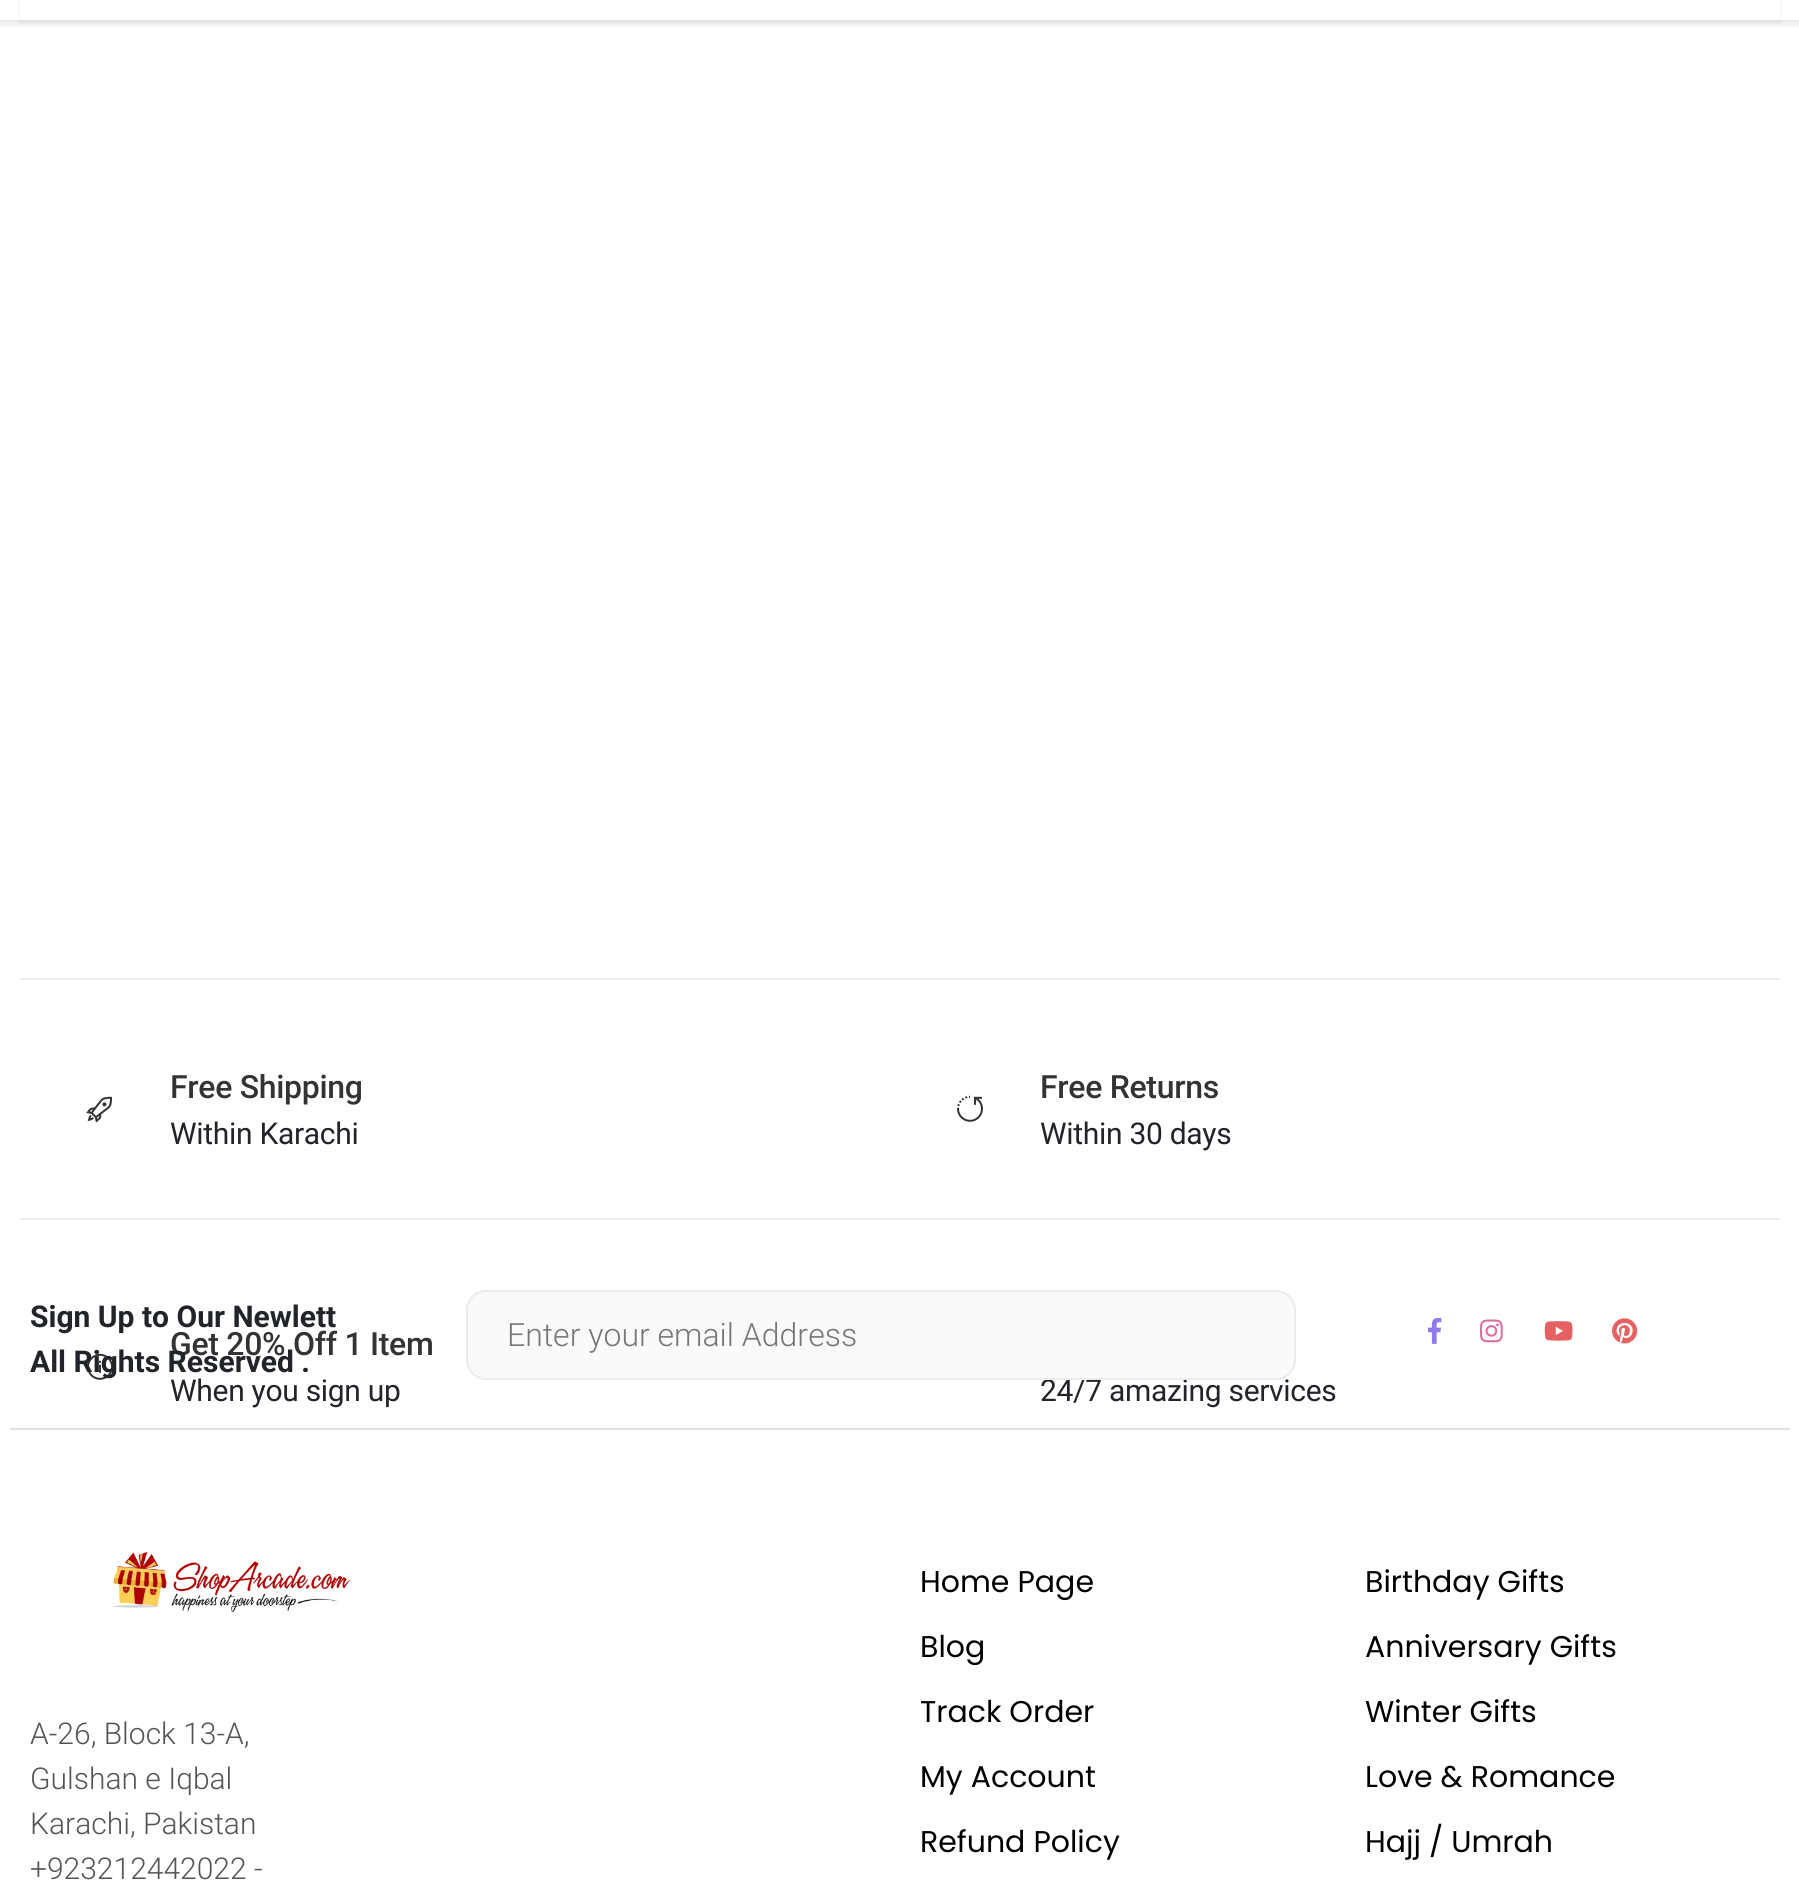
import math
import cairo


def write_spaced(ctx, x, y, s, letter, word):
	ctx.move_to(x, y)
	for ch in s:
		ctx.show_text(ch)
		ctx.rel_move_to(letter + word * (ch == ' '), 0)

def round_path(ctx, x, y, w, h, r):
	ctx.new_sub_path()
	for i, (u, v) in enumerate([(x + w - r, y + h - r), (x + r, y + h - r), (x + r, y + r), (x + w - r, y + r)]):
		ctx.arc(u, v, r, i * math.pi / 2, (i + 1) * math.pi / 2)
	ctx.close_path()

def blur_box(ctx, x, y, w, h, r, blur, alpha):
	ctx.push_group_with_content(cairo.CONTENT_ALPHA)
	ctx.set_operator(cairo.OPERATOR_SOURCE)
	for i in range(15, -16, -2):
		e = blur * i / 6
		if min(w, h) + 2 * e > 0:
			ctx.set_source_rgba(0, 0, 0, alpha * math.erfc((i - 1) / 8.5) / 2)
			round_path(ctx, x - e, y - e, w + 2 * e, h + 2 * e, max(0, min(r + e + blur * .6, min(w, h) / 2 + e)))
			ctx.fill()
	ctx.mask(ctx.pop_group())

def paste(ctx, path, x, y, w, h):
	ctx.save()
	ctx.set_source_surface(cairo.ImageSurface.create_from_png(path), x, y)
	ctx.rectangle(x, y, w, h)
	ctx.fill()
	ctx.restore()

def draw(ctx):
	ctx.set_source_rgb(1, 1, 1)
	ctx.paint()
	ctx.save()
	ctx.rectangle(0, 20, 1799, 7)
	ctx.clip()
	ctx.set_source_rgb(0, 0, 0)
	blur_box(ctx, 0, 4, 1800, 20, 0, 4, 0.1)
	ctx.restore()
	ctx.save()
	ctx.set_fill_rule(cairo.FILL_RULE_EVEN_ODD)
	ctx.new_path()
	ctx.move_to(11, 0)
	ctx.line_to(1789, 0)
	ctx.line_to(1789, 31)
	ctx.line_to(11, 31)
	ctx.close_path()
	ctx.move_to(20, 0)
	ctx.line_to(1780, 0)
	ctx.line_to(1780, 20)
	ctx.line_to(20, 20)
	ctx.close_path()
	ctx.clip()
	ctx.set_source_rgb(0, 0, 0)
	blur_box(ctx, 20, 2, 1760, 20, 0, 2.5, 0.07)
	ctx.restore()
	ctx.set_source_rgb(0.922, 0.922, 0.922)
	ctx.rectangle(20, 978, 1760, 2)
	ctx.fill()
	paste(ctx, 'media/1.png', 86, 1096, 26, 27)
	ctx.select_font_face('Roboto Medium')
	ctx.set_font_size(32)
	ctx.set_source_rgb(0.2, 0.2, 0.2)
	write_spaced(ctx, 170, 1098, 'Free Shipping', -0.3, 0)
	ctx.select_font_face('Roboto')
	ctx.set_font_size(30)
	ctx.set_source_rgb(0.129, 0.145, 0.161)
	write_spaced(ctx, 170, 1144, 'Within Karachi', -0.3, 0)
	paste(ctx, 'media/2.png', 957, 1095, 26, 27)
	ctx.select_font_face('Roboto Medium')
	ctx.set_font_size(32)
	ctx.set_source_rgb(0.2, 0.2, 0.2)
	write_spaced(ctx, 1040, 1098, 'Free Returns', -0.3, 0)
	ctx.select_font_face('Roboto')
	ctx.set_font_size(30)
	ctx.set_source_rgb(0.129, 0.145, 0.161)
	write_spaced(ctx, 1040, 1144, 'Within 30 days', -0.3, 0)
	paste(ctx, 'media/3.png', 87, 1353, 26, 27)
	ctx.select_font_face('Roboto Medium')
	ctx.set_font_size(32)
	ctx.set_source_rgb(0.2, 0.2, 0.2)
	write_spaced(ctx, 170, 1355, 'Get 20% Off 1 Item', -0.3, 0)
	ctx.select_font_face('Roboto')
	ctx.set_font_size(30)
	ctx.set_source_rgb(0.129, 0.145, 0.161)
	write_spaced(ctx, 170, 1401, 'When you sign up', -0.3, 0)
	write_spaced(ctx, 1040, 1401, '24/7 amazing services', -0.3, 0)
	ctx.set_source_rgb(0.922, 0.922, 0.922)
	ctx.rectangle(20, 1218, 1760, 2)
	ctx.fill()
	ctx.select_font_face('Roboto', cairo.FONT_SLANT_NORMAL, cairo.FONT_WEIGHT_BOLD)
	ctx.set_source_rgb(0.129, 0.145, 0.161)
	ctx.move_to(30, 1327)
	ctx.show_text('Sign Up to Our Newlett')
	ctx.move_to(30, 1372)
	ctx.show_text('All Rights Reserved .')
	ctx.set_source_rgb(0.98, 0.98, 0.98)
	round_path(ctx, 467, 1291, 828, 88, 19)
	ctx.fill_preserve()
	ctx.set_source_rgb(0.922, 0.922, 0.922)
	ctx.stroke()
	ctx.select_font_face('Roboto Light')
	ctx.set_font_size(32)
	ctx.set_source_rgb(0.467, 0.467, 0.467)
	ctx.move_to(507, 1346)
	ctx.show_text('Enter your email Address')
	paste(ctx, 'media/4.png', 1428, 1317, 14, 27)
	paste(ctx, 'media/5.png', 1480, 1319, 23, 24)
	paste(ctx, 'media/6.png', 1544, 1321, 29, 20)
	paste(ctx, 'media/7.png', 1612, 1318, 26, 26)
	ctx.set_source_rgb(0.871, 0.886, 0.902)
	ctx.rectangle(10, 1428, 1780, 2)
	ctx.fill()
	paste(ctx, 'media/8.png', 113, 1552, 237, 60)
	ctx.set_font_size(30)
	ctx.set_source_rgb(0.333, 0.333, 0.333)
	for x, y, s in [
		(30, 1744, 'A-26, Block 13-A,'),
		(30, 1789, 'Gulshan e Iqbal'),
		(30, 1834, 'Karachi, Pakistan'),
		(30, 1879, '+923212442022 -'),
	]:
		ctx.move_to(x, y)
		ctx.show_text(s)
	ctx.select_font_face('Poppins')
	ctx.set_source_rgb(0, 0, 0)
	for x, y, s in [
		(920, 1592, 'Home Page'),
		(920, 1657, 'Blog'),
		(920, 1722, 'Track Order'),
		(920, 1787, 'My Account'),
		(920, 1852, 'Refund Policy'),
		(1365, 1592, 'Birthday Gifts'),
		(1365, 1657, 'Anniversary Gifts'),
		(1365, 1722, 'Winter Gifts'),
		(1365, 1787, 'Love & Romance'),
		(1365, 1852, 'Hajj / Umrah'),
	]:
		ctx.move_to(x, y)
		ctx.show_text(s)


surface = cairo.ImageSurface(cairo.FORMAT_RGB24, 1799, 1898)
ctx = cairo.Context(surface)
options = cairo.FontOptions()
options.set_hint_metrics(cairo.HINT_METRICS_OFF)
options.set_hint_style(cairo.HINT_STYLE_NONE)
ctx.set_font_options(options)
ctx.set_miter_limit(4)
draw(ctx)
surface.write_to_png('image.png')
